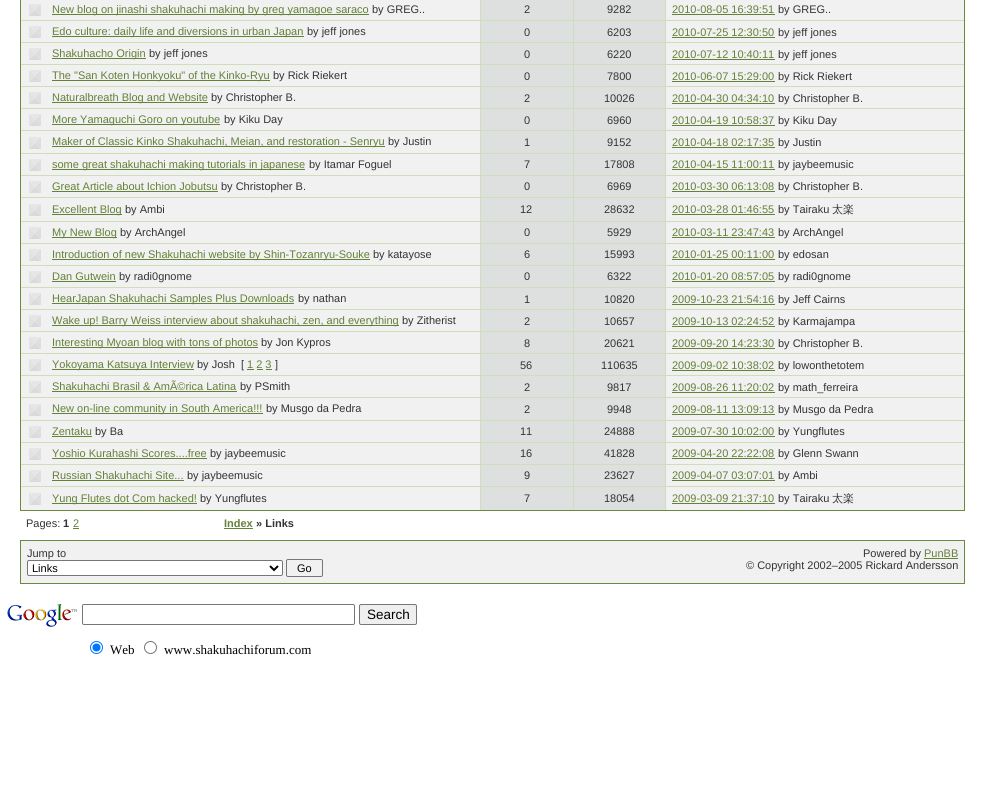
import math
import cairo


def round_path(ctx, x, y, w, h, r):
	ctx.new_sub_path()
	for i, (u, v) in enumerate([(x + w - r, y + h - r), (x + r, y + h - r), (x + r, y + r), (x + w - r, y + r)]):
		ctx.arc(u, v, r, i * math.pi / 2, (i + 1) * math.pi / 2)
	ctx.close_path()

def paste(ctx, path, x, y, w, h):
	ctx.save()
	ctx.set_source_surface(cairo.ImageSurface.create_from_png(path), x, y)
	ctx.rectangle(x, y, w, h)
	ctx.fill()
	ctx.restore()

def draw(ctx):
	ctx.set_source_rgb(1, 1, 1)
	ctx.paint()
	ctx.set_source_rgb(0.945, 0.945, 0.945)
	ctx.rectangle(20.5, -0.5, 944, 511)
	ctx.fill_preserve()
	ctx.set_source_rgb(0.424, 0.541, 0.247)
	ctx.set_line_width(1)
	ctx.stroke()
	ctx.set_source_rgb(0.902, 0.902, 0.902)
	ctx.new_path()
	ctx.move_to(29, 4)
	ctx.line_to(41, 4)
	ctx.line_to(35, 10)
	ctx.close_path()
	ctx.fill()
	ctx.set_source_rgb(0.871, 0.871, 0.871)
	ctx.new_path()
	ctx.move_to(41, 4)
	ctx.line_to(41, 16)
	ctx.line_to(35, 10)
	ctx.close_path()
	ctx.fill()
	ctx.set_source_rgb(0.855, 0.855, 0.855)
	ctx.new_path()
	ctx.move_to(41, 16)
	ctx.line_to(29, 16)
	ctx.line_to(35, 10)
	ctx.close_path()
	ctx.fill()
	ctx.set_source_rgb(0.886, 0.886, 0.886)
	ctx.new_path()
	ctx.move_to(29, 16)
	ctx.line_to(29, 4)
	ctx.line_to(35, 10)
	ctx.close_path()
	ctx.fill()
	ctx.set_source_rgb(0.388, 0.506, 0.216)
	ctx.rectangle(52, 14, 317, 1)
	ctx.fill()
	ctx.select_font_face('Liberation Sans')
	ctx.set_font_size(11)
	ctx.move_to(52, 13)
	ctx.show_text('New blog on jinashi shakuhachi making by greg yamagoe saraco')
	ctx.set_source_rgb(0.2, 0.2, 0.2)
	ctx.move_to(372, 13)
	ctx.show_text('by GREG..')
	ctx.set_source_rgb(0.871, 0.875, 0.875)
	ctx.rectangle(481, 0, 92, 20)
	ctx.fill()
	ctx.set_source_rgb(0.808, 0.871, 0.725)
	ctx.rectangle(480, 0, 1, 20)
	ctx.fill()
	ctx.set_source_rgb(0.2, 0.2, 0.2)
	ctx.move_to(524, 13)
	ctx.show_text('2')
	ctx.set_source_rgb(0.871, 0.875, 0.875)
	ctx.rectangle(574, 0, 91, 20)
	ctx.fill()
	ctx.set_source_rgb(0.808, 0.871, 0.725)
	ctx.rectangle(573, 0, 1, 20)
	ctx.fill()
	ctx.set_source_rgb(0.2, 0.2, 0.2)
	ctx.move_to(607, 13)
	ctx.show_text('9282')
	ctx.set_source_rgb(0.808, 0.871, 0.725)
	ctx.rectangle(21, 20, 943, 1)
	ctx.rectangle(21, 42, 943, 1)
	ctx.rectangle(21, 64, 943, 1)
	ctx.rectangle(665, 0, 1, 86)
	ctx.fill()
	ctx.set_source_rgb(0.388, 0.506, 0.216)
	ctx.move_to(672, 13)
	ctx.show_text('2010-08-05 16:39:51')
	ctx.rectangle(672, 14, 103, 1)
	ctx.fill()
	ctx.set_source_rgb(0.2, 0.2, 0.2)
	ctx.move_to(778, 13)
	ctx.show_text('by GREG..')
	ctx.set_source_rgb(0.902, 0.902, 0.902)
	ctx.new_path()
	ctx.move_to(29, 26)
	ctx.line_to(41, 26)
	ctx.line_to(35, 32)
	ctx.close_path()
	ctx.fill()
	ctx.set_source_rgb(0.871, 0.871, 0.871)
	ctx.new_path()
	ctx.move_to(41, 26)
	ctx.line_to(41, 38)
	ctx.line_to(35, 32)
	ctx.close_path()
	ctx.fill()
	ctx.set_source_rgb(0.855, 0.855, 0.855)
	ctx.new_path()
	ctx.move_to(41, 38)
	ctx.line_to(29, 38)
	ctx.line_to(35, 32)
	ctx.close_path()
	ctx.fill()
	ctx.set_source_rgb(0.886, 0.886, 0.886)
	ctx.new_path()
	ctx.move_to(29, 38)
	ctx.line_to(29, 26)
	ctx.line_to(35, 32)
	ctx.close_path()
	ctx.fill()
	ctx.set_source_rgb(0.388, 0.506, 0.216)
	ctx.rectangle(52, 36, 252, 1)
	ctx.fill()
	ctx.move_to(52, 35)
	ctx.show_text('Edo culture: daily life and diversions in urban Japan')
	ctx.set_source_rgb(0.2, 0.2, 0.2)
	ctx.move_to(307, 35)
	ctx.show_text('by jeff jones')
	ctx.set_source_rgb(0.871, 0.875, 0.875)
	ctx.rectangle(481, 21, 92, 21)
	ctx.fill()
	ctx.set_source_rgb(0.808, 0.871, 0.725)
	ctx.rectangle(480, 20, 1, 22)
	ctx.fill()
	ctx.set_source_rgb(0.2, 0.2, 0.2)
	ctx.move_to(524, 36)
	ctx.show_text('0')
	ctx.set_source_rgb(0.871, 0.875, 0.875)
	ctx.rectangle(574, 21, 91, 21)
	ctx.fill()
	ctx.set_source_rgb(0.808, 0.871, 0.725)
	ctx.rectangle(573, 20, 1, 22)
	ctx.fill()
	ctx.set_source_rgb(0.2, 0.2, 0.2)
	ctx.move_to(607, 36)
	ctx.show_text('6203')
	ctx.set_source_rgb(0.388, 0.506, 0.216)
	ctx.move_to(672, 36)
	ctx.show_text('2010-07-25 12:30:50')
	ctx.rectangle(672, 37, 103, 1)
	ctx.fill()
	ctx.set_source_rgb(0.2, 0.2, 0.2)
	ctx.move_to(778, 36)
	ctx.show_text('by jeff jones')
	ctx.set_source_rgb(0.902, 0.902, 0.902)
	ctx.new_path()
	ctx.move_to(29, 48)
	ctx.line_to(41, 48)
	ctx.line_to(35, 54)
	ctx.close_path()
	ctx.fill()
	ctx.set_source_rgb(0.871, 0.871, 0.871)
	ctx.new_path()
	ctx.move_to(41, 48)
	ctx.line_to(41, 60)
	ctx.line_to(35, 54)
	ctx.close_path()
	ctx.fill()
	ctx.set_source_rgb(0.855, 0.855, 0.855)
	ctx.new_path()
	ctx.move_to(41, 60)
	ctx.line_to(29, 60)
	ctx.line_to(35, 54)
	ctx.close_path()
	ctx.fill()
	ctx.set_source_rgb(0.886, 0.886, 0.886)
	ctx.new_path()
	ctx.move_to(29, 60)
	ctx.line_to(29, 48)
	ctx.line_to(35, 54)
	ctx.close_path()
	ctx.fill()
	ctx.set_source_rgb(0.388, 0.506, 0.216)
	ctx.rectangle(52, 58, 94, 1)
	ctx.fill()
	ctx.move_to(52, 57)
	ctx.show_text('Shakuhacho Origin')
	ctx.set_source_rgb(0.2, 0.2, 0.2)
	ctx.move_to(149, 57)
	ctx.show_text('by jeff jones')
	ctx.set_source_rgb(0.871, 0.875, 0.875)
	ctx.rectangle(481, 43, 92, 21)
	ctx.fill()
	ctx.set_source_rgb(0.808, 0.871, 0.725)
	ctx.rectangle(480, 42, 1, 22)
	ctx.fill()
	ctx.set_source_rgb(0.2, 0.2, 0.2)
	ctx.move_to(524, 58)
	ctx.show_text('0')
	ctx.set_source_rgb(0.871, 0.875, 0.875)
	ctx.rectangle(574, 43, 91, 21)
	ctx.fill()
	ctx.set_source_rgb(0.808, 0.871, 0.725)
	ctx.rectangle(573, 42, 1, 22)
	ctx.fill()
	ctx.set_source_rgb(0.2, 0.2, 0.2)
	ctx.move_to(607, 58)
	ctx.show_text('6220')
	ctx.set_source_rgb(0.388, 0.506, 0.216)
	ctx.move_to(672, 58)
	ctx.show_text('2010-07-12 10:40:11')
	ctx.rectangle(672, 59, 103, 1)
	ctx.fill()
	ctx.set_source_rgb(0.2, 0.2, 0.2)
	ctx.move_to(778, 58)
	ctx.show_text('by jeff jones')
	ctx.set_source_rgb(0.902, 0.902, 0.902)
	ctx.new_path()
	ctx.move_to(29, 70)
	ctx.line_to(41, 70)
	ctx.line_to(35, 76)
	ctx.close_path()
	ctx.fill()
	ctx.set_source_rgb(0.871, 0.871, 0.871)
	ctx.new_path()
	ctx.move_to(41, 70)
	ctx.line_to(41, 82)
	ctx.line_to(35, 76)
	ctx.close_path()
	ctx.fill()
	ctx.set_source_rgb(0.855, 0.855, 0.855)
	ctx.new_path()
	ctx.move_to(41, 82)
	ctx.line_to(29, 82)
	ctx.line_to(35, 76)
	ctx.close_path()
	ctx.fill()
	ctx.set_source_rgb(0.886, 0.886, 0.886)
	ctx.new_path()
	ctx.move_to(29, 82)
	ctx.line_to(29, 70)
	ctx.line_to(35, 76)
	ctx.close_path()
	ctx.fill()
	ctx.set_source_rgb(0.388, 0.506, 0.216)
	ctx.rectangle(52, 80, 218, 1)
	ctx.fill()
	ctx.move_to(52, 79)
	ctx.show_text('The "San Koten Honkyoku" of the Kinko-Ryu')
	ctx.set_source_rgb(0.2, 0.2, 0.2)
	ctx.move_to(273, 79)
	ctx.show_text('by Rick Riekert')
	ctx.set_source_rgb(0.871, 0.875, 0.875)
	ctx.rectangle(481, 65, 92, 21)
	ctx.fill()
	ctx.set_source_rgb(0.808, 0.871, 0.725)
	ctx.rectangle(480, 64, 1, 22)
	ctx.fill()
	ctx.set_source_rgb(0.2, 0.2, 0.2)
	ctx.move_to(524, 80)
	ctx.show_text('0')
	ctx.set_source_rgb(0.871, 0.875, 0.875)
	ctx.rectangle(574, 65, 91, 21)
	ctx.fill()
	ctx.set_source_rgb(0.808, 0.871, 0.725)
	ctx.rectangle(573, 64, 1, 22)
	ctx.fill()
	ctx.set_source_rgb(0.2, 0.2, 0.2)
	ctx.move_to(607, 80)
	ctx.show_text('7800')
	ctx.set_source_rgb(0.388, 0.506, 0.216)
	ctx.move_to(672, 80)
	ctx.show_text('2010-06-07 15:29:00')
	ctx.rectangle(672, 81, 103, 1)
	ctx.fill()
	ctx.set_source_rgb(0.2, 0.2, 0.2)
	ctx.move_to(778, 80)
	ctx.show_text('by Rick Riekert')
	ctx.set_source_rgb(0.902, 0.902, 0.902)
	ctx.new_path()
	ctx.move_to(29, 92)
	ctx.line_to(41, 92)
	ctx.line_to(35, 98)
	ctx.close_path()
	ctx.fill()
	ctx.set_source_rgb(0.871, 0.871, 0.871)
	ctx.new_path()
	ctx.move_to(41, 92)
	ctx.line_to(41, 104)
	ctx.line_to(35, 98)
	ctx.close_path()
	ctx.fill()
	ctx.set_source_rgb(0.855, 0.855, 0.855)
	ctx.new_path()
	ctx.move_to(41, 104)
	ctx.line_to(29, 104)
	ctx.line_to(35, 98)
	ctx.close_path()
	ctx.fill()
	ctx.set_source_rgb(0.886, 0.886, 0.886)
	ctx.new_path()
	ctx.move_to(29, 104)
	ctx.line_to(29, 92)
	ctx.line_to(35, 98)
	ctx.close_path()
	ctx.fill()
	ctx.set_source_rgb(0.388, 0.506, 0.216)
	ctx.rectangle(52, 102, 156, 1)
	ctx.fill()
	ctx.move_to(52, 101)
	ctx.show_text('Naturalbreath Blog and Website')
	ctx.set_source_rgb(0.2, 0.2, 0.2)
	ctx.move_to(211, 101)
	ctx.show_text('by Christopher B.')
	ctx.set_source_rgb(0.871, 0.875, 0.875)
	ctx.rectangle(481, 87, 92, 21)
	ctx.fill()
	ctx.set_source_rgb(0.808, 0.871, 0.725)
	ctx.rectangle(21, 86, 644, 1)
	ctx.rectangle(480, 86, 1, 22)
	ctx.fill()
	ctx.set_source_rgb(0.2, 0.2, 0.2)
	ctx.move_to(524, 102)
	ctx.show_text('2')
	ctx.set_source_rgb(0.871, 0.875, 0.875)
	ctx.rectangle(574, 87, 91, 21)
	ctx.fill()
	ctx.set_source_rgb(0.808, 0.871, 0.725)
	ctx.rectangle(573, 86, 1, 22)
	ctx.fill()
	ctx.set_source_rgb(0.2, 0.2, 0.2)
	ctx.move_to(604, 102)
	ctx.show_text('10026')
	ctx.set_source_rgb(0.808, 0.871, 0.725)
	ctx.rectangle(665, 86, 299, 1)
	ctx.fill()
	ctx.rectangle(665, 86, 1, 22)
	ctx.fill()
	ctx.set_source_rgb(0.388, 0.506, 0.216)
	ctx.move_to(672, 102)
	ctx.show_text('2010-04-30 04:34:10')
	ctx.rectangle(672, 103, 103, 1)
	ctx.fill()
	ctx.set_source_rgb(0.2, 0.2, 0.2)
	ctx.move_to(778, 102)
	ctx.show_text('by Christopher B.')
	ctx.set_source_rgb(0.808, 0.871, 0.725)
	ctx.rectangle(21, 108, 459, 1)
	ctx.fill()
	ctx.set_source_rgb(0.902, 0.902, 0.902)
	ctx.new_path()
	ctx.move_to(29, 114)
	ctx.line_to(41, 114)
	ctx.line_to(35, 120)
	ctx.close_path()
	ctx.fill()
	ctx.set_source_rgb(0.871, 0.871, 0.871)
	ctx.new_path()
	ctx.move_to(41, 114)
	ctx.line_to(41, 126)
	ctx.line_to(35, 120)
	ctx.close_path()
	ctx.fill()
	ctx.set_source_rgb(0.855, 0.855, 0.855)
	ctx.new_path()
	ctx.move_to(41, 126)
	ctx.line_to(29, 126)
	ctx.line_to(35, 120)
	ctx.close_path()
	ctx.fill()
	ctx.set_source_rgb(0.886, 0.886, 0.886)
	ctx.new_path()
	ctx.move_to(29, 126)
	ctx.line_to(29, 114)
	ctx.line_to(35, 120)
	ctx.close_path()
	ctx.fill()
	ctx.set_source_rgb(0.388, 0.506, 0.216)
	ctx.rectangle(52, 124, 168, 1)
	ctx.fill()
	ctx.move_to(52, 123)
	ctx.show_text('More Yamaguchi Goro on youtube')
	ctx.set_source_rgb(0.2, 0.2, 0.2)
	ctx.move_to(224, 123)
	ctx.show_text('by Kiku Day')
	ctx.set_source_rgb(0.871, 0.875, 0.875)
	ctx.rectangle(481, 109, 92, 21)
	ctx.fill()
	ctx.set_source_rgb(0.808, 0.871, 0.725)
	ctx.rectangle(480, 108, 185, 1)
	ctx.rectangle(480, 108, 1, 22)
	ctx.fill()
	ctx.set_source_rgb(0.2, 0.2, 0.2)
	ctx.move_to(524, 124)
	ctx.show_text('0')
	ctx.set_source_rgb(0.871, 0.875, 0.875)
	ctx.rectangle(574, 109, 91, 21)
	ctx.fill()
	ctx.set_source_rgb(0.808, 0.871, 0.725)
	ctx.rectangle(573, 108, 1, 22)
	ctx.fill()
	ctx.set_source_rgb(0.2, 0.2, 0.2)
	ctx.move_to(607, 124)
	ctx.show_text('6960')
	ctx.set_source_rgb(0.808, 0.871, 0.725)
	ctx.rectangle(665, 108, 299, 1)
	ctx.fill()
	ctx.rectangle(665, 108, 1, 22)
	ctx.fill()
	ctx.set_source_rgb(0.388, 0.506, 0.216)
	ctx.move_to(672, 124)
	ctx.show_text('2010-04-19 10:58:37')
	ctx.rectangle(672, 125, 103, 1)
	ctx.fill()
	ctx.set_source_rgb(0.2, 0.2, 0.2)
	ctx.move_to(778, 124)
	ctx.show_text('by Kiku Day')
	ctx.set_source_rgb(0.808, 0.871, 0.725)
	ctx.rectangle(21, 130, 459, 1)
	ctx.fill()
	ctx.set_source_rgb(0.902, 0.902, 0.902)
	ctx.new_path()
	ctx.move_to(29, 137)
	ctx.line_to(41, 137)
	ctx.line_to(35, 143)
	ctx.close_path()
	ctx.fill()
	ctx.set_source_rgb(0.871, 0.871, 0.871)
	ctx.new_path()
	ctx.move_to(41, 137)
	ctx.line_to(41, 149)
	ctx.line_to(35, 143)
	ctx.close_path()
	ctx.fill()
	ctx.set_source_rgb(0.855, 0.855, 0.855)
	ctx.new_path()
	ctx.move_to(41, 149)
	ctx.line_to(29, 149)
	ctx.line_to(35, 143)
	ctx.close_path()
	ctx.fill()
	ctx.set_source_rgb(0.886, 0.886, 0.886)
	ctx.new_path()
	ctx.move_to(29, 149)
	ctx.line_to(29, 137)
	ctx.line_to(35, 143)
	ctx.close_path()
	ctx.fill()
	ctx.set_source_rgb(0.388, 0.506, 0.216)
	ctx.rectangle(52, 146, 333, 1)
	ctx.fill()
	ctx.move_to(52, 145)
	ctx.show_text('Maker of Classic Kinko Shakuhachi, Meian, and restoration - Senryu')
	ctx.set_source_rgb(0.2, 0.2, 0.2)
	ctx.move_to(388, 145)
	ctx.show_text('by Justin')
	ctx.set_source_rgb(0.871, 0.875, 0.875)
	ctx.rectangle(481, 131, 92, 22)
	ctx.fill()
	ctx.set_source_rgb(0.808, 0.871, 0.725)
	ctx.rectangle(480, 130, 185, 1)
	ctx.rectangle(480, 130, 1, 23)
	ctx.fill()
	ctx.set_source_rgb(0.2, 0.2, 0.2)
	ctx.move_to(524, 146)
	ctx.show_text('1')
	ctx.set_source_rgb(0.871, 0.875, 0.875)
	ctx.rectangle(574, 131, 91, 22)
	ctx.fill()
	ctx.set_source_rgb(0.808, 0.871, 0.725)
	ctx.rectangle(573, 130, 1, 23)
	ctx.fill()
	ctx.set_source_rgb(0.2, 0.2, 0.2)
	ctx.move_to(607, 146)
	ctx.show_text('9152')
	ctx.set_source_rgb(0.808, 0.871, 0.725)
	ctx.rectangle(665, 130, 299, 1)
	ctx.fill()
	ctx.rectangle(665, 130, 1, 23)
	ctx.fill()
	ctx.set_source_rgb(0.388, 0.506, 0.216)
	ctx.move_to(672, 146)
	ctx.show_text('2010-04-18 02:17:35')
	ctx.rectangle(672, 147, 103, 1)
	ctx.fill()
	ctx.set_source_rgb(0.2, 0.2, 0.2)
	ctx.move_to(778, 146)
	ctx.show_text('by Justin')
	ctx.set_source_rgb(0.808, 0.871, 0.725)
	ctx.rectangle(21, 153, 459, 1)
	ctx.fill()
	ctx.set_source_rgb(0.902, 0.902, 0.902)
	ctx.new_path()
	ctx.move_to(29, 159)
	ctx.line_to(41, 159)
	ctx.line_to(35, 165)
	ctx.close_path()
	ctx.fill()
	ctx.set_source_rgb(0.871, 0.871, 0.871)
	ctx.new_path()
	ctx.move_to(41, 159)
	ctx.line_to(41, 171)
	ctx.line_to(35, 165)
	ctx.close_path()
	ctx.fill()
	ctx.set_source_rgb(0.855, 0.855, 0.855)
	ctx.new_path()
	ctx.move_to(41, 171)
	ctx.line_to(29, 171)
	ctx.line_to(35, 165)
	ctx.close_path()
	ctx.fill()
	ctx.set_source_rgb(0.886, 0.886, 0.886)
	ctx.new_path()
	ctx.move_to(29, 171)
	ctx.line_to(29, 159)
	ctx.line_to(35, 165)
	ctx.close_path()
	ctx.fill()
	ctx.set_source_rgb(0.388, 0.506, 0.216)
	ctx.rectangle(52, 169, 253, 1)
	ctx.fill()
	ctx.move_to(52, 168)
	ctx.show_text('some great shakuhachi making tutorials in japanese')
	ctx.set_source_rgb(0.2, 0.2, 0.2)
	ctx.move_to(309, 168)
	ctx.show_text('by Itamar Foguel')
	ctx.set_source_rgb(0.871, 0.875, 0.875)
	ctx.rectangle(481, 154, 92, 21)
	ctx.fill()
	ctx.set_source_rgb(0.808, 0.871, 0.725)
	ctx.rectangle(480, 153, 185, 1)
	ctx.rectangle(480, 153, 1, 22)
	ctx.fill()
	ctx.set_source_rgb(0.2, 0.2, 0.2)
	ctx.move_to(524, 168)
	ctx.show_text('7')
	ctx.set_source_rgb(0.871, 0.875, 0.875)
	ctx.rectangle(574, 154, 91, 21)
	ctx.fill()
	ctx.set_source_rgb(0.808, 0.871, 0.725)
	ctx.rectangle(573, 153, 1, 22)
	ctx.fill()
	ctx.set_source_rgb(0.2, 0.2, 0.2)
	ctx.move_to(604, 168)
	ctx.show_text('17808')
	ctx.set_source_rgb(0.808, 0.871, 0.725)
	ctx.rectangle(665, 153, 299, 1)
	ctx.fill()
	ctx.rectangle(665, 153, 1, 22)
	ctx.fill()
	ctx.set_source_rgb(0.388, 0.506, 0.216)
	ctx.move_to(672, 168)
	ctx.show_text('2010-04-15 11:00:11')
	ctx.rectangle(672, 169, 103, 1)
	ctx.fill()
	ctx.set_source_rgb(0.2, 0.2, 0.2)
	ctx.move_to(778, 168)
	ctx.show_text('by jaybeemusic')
	ctx.set_source_rgb(0.808, 0.871, 0.725)
	ctx.rectangle(21, 175, 459, 1)
	ctx.fill()
	ctx.set_source_rgb(0.902, 0.902, 0.902)
	ctx.new_path()
	ctx.move_to(29, 181)
	ctx.line_to(41, 181)
	ctx.line_to(35, 187)
	ctx.close_path()
	ctx.fill()
	ctx.set_source_rgb(0.871, 0.871, 0.871)
	ctx.new_path()
	ctx.move_to(41, 181)
	ctx.line_to(41, 193)
	ctx.line_to(35, 187)
	ctx.close_path()
	ctx.fill()
	ctx.set_source_rgb(0.855, 0.855, 0.855)
	ctx.new_path()
	ctx.move_to(41, 193)
	ctx.line_to(29, 193)
	ctx.line_to(35, 187)
	ctx.close_path()
	ctx.fill()
	ctx.set_source_rgb(0.886, 0.886, 0.886)
	ctx.new_path()
	ctx.move_to(29, 193)
	ctx.line_to(29, 181)
	ctx.line_to(35, 187)
	ctx.close_path()
	ctx.fill()
	ctx.set_source_rgb(0.388, 0.506, 0.216)
	ctx.move_to(52, 190)
	ctx.show_text('Great Article about Ichion Jobutsu')
	ctx.rectangle(52, 191, 166, 1)
	ctx.fill()
	ctx.set_source_rgb(0.2, 0.2, 0.2)
	ctx.move_to(221, 190)
	ctx.show_text('by Christopher B.')
	ctx.set_source_rgb(0.871, 0.875, 0.875)
	ctx.rectangle(481, 176, 92, 21)
	ctx.fill()
	ctx.set_source_rgb(0.808, 0.871, 0.725)
	ctx.rectangle(480, 175, 185, 1)
	ctx.rectangle(480, 175, 1, 22)
	ctx.fill()
	ctx.set_source_rgb(0.2, 0.2, 0.2)
	ctx.move_to(524, 190)
	ctx.show_text('0')
	ctx.set_source_rgb(0.871, 0.875, 0.875)
	ctx.rectangle(574, 176, 91, 21)
	ctx.fill()
	ctx.set_source_rgb(0.808, 0.871, 0.725)
	ctx.rectangle(573, 175, 1, 22)
	ctx.fill()
	ctx.set_source_rgb(0.2, 0.2, 0.2)
	ctx.move_to(607, 190)
	ctx.show_text('6969')
	ctx.set_source_rgb(0.808, 0.871, 0.725)
	ctx.rectangle(665, 175, 299, 1)
	ctx.fill()
	ctx.rectangle(665, 175, 1, 22)
	ctx.fill()
	ctx.set_source_rgb(0.388, 0.506, 0.216)
	ctx.move_to(672, 190)
	ctx.show_text('2010-03-30 06:13:08')
	ctx.rectangle(672, 191, 103, 1)
	ctx.fill()
	ctx.set_source_rgb(0.2, 0.2, 0.2)
	ctx.move_to(778, 190)
	ctx.show_text('by Christopher B.')
	ctx.set_source_rgb(0.808, 0.871, 0.725)
	ctx.rectangle(21, 197, 459, 1)
	ctx.fill()
	ctx.set_source_rgb(0.902, 0.902, 0.902)
	ctx.new_path()
	ctx.move_to(29, 204)
	ctx.line_to(41, 204)
	ctx.line_to(35, 210)
	ctx.close_path()
	ctx.fill()
	ctx.set_source_rgb(0.871, 0.871, 0.871)
	ctx.new_path()
	ctx.move_to(41, 204)
	ctx.line_to(41, 216)
	ctx.line_to(35, 210)
	ctx.close_path()
	ctx.fill()
	ctx.set_source_rgb(0.855, 0.855, 0.855)
	ctx.new_path()
	ctx.move_to(41, 216)
	ctx.line_to(29, 216)
	ctx.line_to(35, 210)
	ctx.close_path()
	ctx.fill()
	ctx.set_source_rgb(0.886, 0.886, 0.886)
	ctx.new_path()
	ctx.move_to(29, 216)
	ctx.line_to(29, 204)
	ctx.line_to(35, 210)
	ctx.close_path()
	ctx.fill()
	ctx.set_source_rgb(0.388, 0.506, 0.216)
	ctx.rectangle(52, 214, 70, 1)
	ctx.fill()
	ctx.move_to(52, 213)
	ctx.show_text('Excellent Blog')
	ctx.set_source_rgb(0.2, 0.2, 0.2)
	ctx.move_to(125, 213)
	ctx.show_text('by Ambi')
	ctx.set_source_rgb(0.871, 0.875, 0.875)
	ctx.rectangle(481, 198, 92, 23)
	ctx.fill()
	ctx.set_source_rgb(0.808, 0.871, 0.725)
	ctx.rectangle(480, 197, 185, 1)
	ctx.rectangle(480, 197, 1, 24)
	ctx.fill()
	ctx.set_source_rgb(0.2, 0.2, 0.2)
	ctx.move_to(520, 213)
	ctx.show_text('12')
	ctx.set_source_rgb(0.871, 0.875, 0.875)
	ctx.rectangle(574, 198, 91, 23)
	ctx.fill()
	ctx.set_source_rgb(0.808, 0.871, 0.725)
	ctx.rectangle(573, 197, 1, 24)
	ctx.fill()
	ctx.set_source_rgb(0.2, 0.2, 0.2)
	ctx.move_to(604, 213)
	ctx.show_text('28632')
	ctx.set_source_rgb(0.808, 0.871, 0.725)
	ctx.rectangle(665, 197, 299, 1)
	ctx.fill()
	ctx.rectangle(665, 197, 1, 24)
	ctx.fill()
	ctx.set_source_rgb(0.388, 0.506, 0.216)
	ctx.move_to(672, 213)
	ctx.show_text('2010-03-28 01:46:55')
	ctx.rectangle(672, 214, 103, 1)
	ctx.fill()
	ctx.set_source_rgb(0.2, 0.2, 0.2)
	ctx.move_to(778, 213)
	ctx.show_text('by Tairaku')
	ctx.select_font_face('WenQuanYi Zen Hei Medium')
	ctx.move_to(832, 213)
	ctx.show_text('太楽')
	ctx.set_source_rgb(0.808, 0.871, 0.725)
	ctx.rectangle(21, 221, 459, 1)
	ctx.fill()
	ctx.set_source_rgb(0.902, 0.902, 0.902)
	ctx.new_path()
	ctx.move_to(29, 227)
	ctx.line_to(41, 227)
	ctx.line_to(35, 233)
	ctx.close_path()
	ctx.fill()
	ctx.set_source_rgb(0.871, 0.871, 0.871)
	ctx.new_path()
	ctx.move_to(41, 227)
	ctx.line_to(41, 239)
	ctx.line_to(35, 233)
	ctx.close_path()
	ctx.fill()
	ctx.set_source_rgb(0.855, 0.855, 0.855)
	ctx.new_path()
	ctx.move_to(41, 239)
	ctx.line_to(29, 239)
	ctx.line_to(35, 233)
	ctx.close_path()
	ctx.fill()
	ctx.set_source_rgb(0.886, 0.886, 0.886)
	ctx.new_path()
	ctx.move_to(29, 239)
	ctx.line_to(29, 227)
	ctx.line_to(35, 233)
	ctx.close_path()
	ctx.fill()
	ctx.set_source_rgb(0.388, 0.506, 0.216)
	ctx.rectangle(52, 237, 65, 1)
	ctx.fill()
	ctx.select_font_face('Liberation Sans')
	ctx.move_to(52, 236)
	ctx.show_text('My New Blog')
	ctx.set_source_rgb(0.2, 0.2, 0.2)
	ctx.move_to(120, 236)
	ctx.show_text('by ArchAngel')
	ctx.set_source_rgb(0.871, 0.875, 0.875)
	ctx.rectangle(481, 222, 92, 21)
	ctx.fill()
	ctx.set_source_rgb(0.808, 0.871, 0.725)
	ctx.rectangle(480, 221, 185, 1)
	ctx.rectangle(480, 221, 1, 22)
	ctx.fill()
	ctx.set_source_rgb(0.2, 0.2, 0.2)
	ctx.move_to(524, 236)
	ctx.show_text('0')
	ctx.set_source_rgb(0.871, 0.875, 0.875)
	ctx.rectangle(574, 222, 91, 21)
	ctx.fill()
	ctx.set_source_rgb(0.808, 0.871, 0.725)
	ctx.rectangle(573, 221, 1, 22)
	ctx.fill()
	ctx.set_source_rgb(0.2, 0.2, 0.2)
	ctx.move_to(607, 236)
	ctx.show_text('5929')
	ctx.set_source_rgb(0.808, 0.871, 0.725)
	ctx.rectangle(665, 221, 299, 1)
	ctx.fill()
	ctx.rectangle(665, 221, 1, 22)
	ctx.fill()
	ctx.set_source_rgb(0.388, 0.506, 0.216)
	ctx.move_to(672, 236)
	ctx.show_text('2010-03-11 23:47:43')
	ctx.rectangle(672, 237, 103, 1)
	ctx.fill()
	ctx.set_source_rgb(0.2, 0.2, 0.2)
	ctx.move_to(778, 236)
	ctx.show_text('by ArchAngel')
	ctx.set_source_rgb(0.808, 0.871, 0.725)
	ctx.rectangle(21, 243, 459, 1)
	ctx.fill()
	ctx.set_source_rgb(0.902, 0.902, 0.902)
	ctx.new_path()
	ctx.move_to(29, 249)
	ctx.line_to(41, 249)
	ctx.line_to(35, 255)
	ctx.close_path()
	ctx.fill()
	ctx.set_source_rgb(0.871, 0.871, 0.871)
	ctx.new_path()
	ctx.move_to(41, 249)
	ctx.line_to(41, 261)
	ctx.line_to(35, 255)
	ctx.close_path()
	ctx.fill()
	ctx.set_source_rgb(0.855, 0.855, 0.855)
	ctx.new_path()
	ctx.move_to(41, 261)
	ctx.line_to(29, 261)
	ctx.line_to(35, 255)
	ctx.close_path()
	ctx.fill()
	ctx.set_source_rgb(0.886, 0.886, 0.886)
	ctx.new_path()
	ctx.move_to(29, 261)
	ctx.line_to(29, 249)
	ctx.line_to(35, 255)
	ctx.close_path()
	ctx.fill()
	ctx.set_source_rgb(0.388, 0.506, 0.216)
	ctx.rectangle(52, 259, 318, 1)
	ctx.fill()
	ctx.move_to(52, 258)
	ctx.show_text('Introduction of new Shakuhachi website by Shin-Tozanryu-Souke')
	ctx.set_source_rgb(0.2, 0.2, 0.2)
	ctx.move_to(373, 258)
	ctx.show_text('by katayose')
	ctx.set_source_rgb(0.871, 0.875, 0.875)
	ctx.rectangle(481, 244, 92, 21)
	ctx.fill()
	ctx.set_source_rgb(0.808, 0.871, 0.725)
	ctx.rectangle(480, 243, 185, 1)
	ctx.rectangle(480, 243, 1, 22)
	ctx.fill()
	ctx.set_source_rgb(0.2, 0.2, 0.2)
	ctx.move_to(524, 258)
	ctx.show_text('6')
	ctx.set_source_rgb(0.871, 0.875, 0.875)
	ctx.rectangle(574, 244, 91, 21)
	ctx.fill()
	ctx.set_source_rgb(0.808, 0.871, 0.725)
	ctx.rectangle(573, 243, 1, 22)
	ctx.fill()
	ctx.set_source_rgb(0.2, 0.2, 0.2)
	ctx.move_to(604, 258)
	ctx.show_text('15993')
	ctx.set_source_rgb(0.808, 0.871, 0.725)
	ctx.rectangle(665, 243, 299, 1)
	ctx.fill()
	ctx.rectangle(665, 243, 1, 22)
	ctx.fill()
	ctx.set_source_rgb(0.388, 0.506, 0.216)
	ctx.move_to(672, 258)
	ctx.show_text('2010-01-25 00:11:00')
	ctx.rectangle(672, 259, 103, 1)
	ctx.fill()
	ctx.set_source_rgb(0.2, 0.2, 0.2)
	ctx.move_to(778, 258)
	ctx.show_text('by edosan')
	ctx.set_source_rgb(0.808, 0.871, 0.725)
	ctx.rectangle(21, 265, 459, 1)
	ctx.fill()
	ctx.set_source_rgb(0.902, 0.902, 0.902)
	ctx.new_path()
	ctx.move_to(29, 271)
	ctx.line_to(41, 271)
	ctx.line_to(35, 277)
	ctx.close_path()
	ctx.fill()
	ctx.set_source_rgb(0.871, 0.871, 0.871)
	ctx.new_path()
	ctx.move_to(41, 271)
	ctx.line_to(41, 283)
	ctx.line_to(35, 277)
	ctx.close_path()
	ctx.fill()
	ctx.set_source_rgb(0.855, 0.855, 0.855)
	ctx.new_path()
	ctx.move_to(41, 283)
	ctx.line_to(29, 283)
	ctx.line_to(35, 277)
	ctx.close_path()
	ctx.fill()
	ctx.set_source_rgb(0.886, 0.886, 0.886)
	ctx.new_path()
	ctx.move_to(29, 283)
	ctx.line_to(29, 271)
	ctx.line_to(35, 277)
	ctx.close_path()
	ctx.fill()
	ctx.set_source_rgb(0.388, 0.506, 0.216)
	ctx.move_to(52, 280)
	ctx.show_text('Dan Gutwein')
	ctx.rectangle(52, 281, 64, 1)
	ctx.fill()
	ctx.set_source_rgb(0.2, 0.2, 0.2)
	ctx.move_to(119, 280)
	ctx.show_text('by radi0gnome')
	ctx.set_source_rgb(0.871, 0.875, 0.875)
	ctx.rectangle(481, 266, 92, 21)
	ctx.fill()
	ctx.set_source_rgb(0.808, 0.871, 0.725)
	ctx.rectangle(480, 265, 185, 1)
	ctx.rectangle(480, 265, 1, 22)
	ctx.fill()
	ctx.set_source_rgb(0.2, 0.2, 0.2)
	ctx.move_to(524, 280)
	ctx.show_text('0')
	ctx.set_source_rgb(0.871, 0.875, 0.875)
	ctx.rectangle(574, 266, 91, 21)
	ctx.fill()
	ctx.set_source_rgb(0.808, 0.871, 0.725)
	ctx.rectangle(573, 265, 1, 22)
	ctx.fill()
	ctx.set_source_rgb(0.2, 0.2, 0.2)
	ctx.move_to(607, 280)
	ctx.show_text('6322')
	ctx.set_source_rgb(0.808, 0.871, 0.725)
	ctx.rectangle(665, 265, 299, 1)
	ctx.fill()
	ctx.rectangle(665, 265, 1, 22)
	ctx.fill()
	ctx.set_source_rgb(0.388, 0.506, 0.216)
	ctx.move_to(672, 280)
	ctx.show_text('2010-01-20 08:57:05')
	ctx.rectangle(672, 281, 103, 1)
	ctx.fill()
	ctx.set_source_rgb(0.2, 0.2, 0.2)
	ctx.move_to(778, 280)
	ctx.show_text('by radi0gnome')
	ctx.set_source_rgb(0.808, 0.871, 0.725)
	ctx.rectangle(21, 287, 459, 1)
	ctx.fill()
	ctx.set_source_rgb(0.902, 0.902, 0.902)
	ctx.new_path()
	ctx.move_to(29, 293)
	ctx.line_to(41, 293)
	ctx.line_to(35, 299)
	ctx.close_path()
	ctx.fill()
	ctx.set_source_rgb(0.871, 0.871, 0.871)
	ctx.new_path()
	ctx.move_to(41, 293)
	ctx.line_to(41, 305)
	ctx.line_to(35, 299)
	ctx.close_path()
	ctx.fill()
	ctx.set_source_rgb(0.855, 0.855, 0.855)
	ctx.new_path()
	ctx.move_to(41, 305)
	ctx.line_to(29, 305)
	ctx.line_to(35, 299)
	ctx.close_path()
	ctx.fill()
	ctx.set_source_rgb(0.886, 0.886, 0.886)
	ctx.new_path()
	ctx.move_to(29, 305)
	ctx.line_to(29, 293)
	ctx.line_to(35, 299)
	ctx.close_path()
	ctx.fill()
	ctx.set_source_rgb(0.388, 0.506, 0.216)
	ctx.rectangle(52, 303, 242, 1)
	ctx.fill()
	ctx.move_to(52, 302)
	ctx.show_text('HearJapan Shakuhachi Samples Plus Downloads')
	ctx.set_source_rgb(0.2, 0.2, 0.2)
	ctx.move_to(298, 302)
	ctx.show_text('by nathan')
	ctx.set_source_rgb(0.871, 0.875, 0.875)
	ctx.rectangle(481, 288, 92, 21)
	ctx.fill()
	ctx.set_source_rgb(0.808, 0.871, 0.725)
	ctx.rectangle(480, 287, 185, 1)
	ctx.rectangle(480, 287, 1, 22)
	ctx.fill()
	ctx.set_source_rgb(0.2, 0.2, 0.2)
	ctx.move_to(524, 303)
	ctx.show_text('1')
	ctx.set_source_rgb(0.871, 0.875, 0.875)
	ctx.rectangle(574, 288, 91, 21)
	ctx.fill()
	ctx.set_source_rgb(0.808, 0.871, 0.725)
	ctx.rectangle(573, 287, 1, 22)
	ctx.fill()
	ctx.set_source_rgb(0.2, 0.2, 0.2)
	ctx.move_to(604, 303)
	ctx.show_text('10820')
	ctx.set_source_rgb(0.808, 0.871, 0.725)
	ctx.rectangle(665, 287, 299, 1)
	ctx.fill()
	ctx.rectangle(665, 287, 1, 22)
	ctx.fill()
	ctx.set_source_rgb(0.388, 0.506, 0.216)
	ctx.move_to(672, 303)
	ctx.show_text('2009-10-23 21:54:16')
	ctx.rectangle(672, 304, 103, 1)
	ctx.fill()
	ctx.set_source_rgb(0.2, 0.2, 0.2)
	ctx.move_to(778, 303)
	ctx.show_text('by Jeff Cairns')
	ctx.set_source_rgb(0.808, 0.871, 0.725)
	ctx.rectangle(21, 309, 459, 1)
	ctx.fill()
	ctx.set_source_rgb(0.902, 0.902, 0.902)
	ctx.new_path()
	ctx.move_to(29, 315)
	ctx.line_to(41, 315)
	ctx.line_to(35, 321)
	ctx.close_path()
	ctx.fill()
	ctx.set_source_rgb(0.871, 0.871, 0.871)
	ctx.new_path()
	ctx.move_to(41, 315)
	ctx.line_to(41, 327)
	ctx.line_to(35, 321)
	ctx.close_path()
	ctx.fill()
	ctx.set_source_rgb(0.855, 0.855, 0.855)
	ctx.new_path()
	ctx.move_to(41, 327)
	ctx.line_to(29, 327)
	ctx.line_to(35, 321)
	ctx.close_path()
	ctx.fill()
	ctx.set_source_rgb(0.886, 0.886, 0.886)
	ctx.new_path()
	ctx.move_to(29, 327)
	ctx.line_to(29, 315)
	ctx.line_to(35, 321)
	ctx.close_path()
	ctx.fill()
	ctx.set_source_rgb(0.388, 0.506, 0.216)
	ctx.rectangle(52, 325, 347, 1)
	ctx.fill()
	ctx.move_to(52, 324)
	ctx.show_text('Wake up! Barry Weiss interview about shakuhachi, zen, and everything')
	ctx.set_source_rgb(0.2, 0.2, 0.2)
	ctx.move_to(402, 324)
	ctx.show_text('by Zitherist')
	ctx.set_source_rgb(0.871, 0.875, 0.875)
	ctx.rectangle(481, 310, 92, 21)
	ctx.fill()
	ctx.set_source_rgb(0.808, 0.871, 0.725)
	ctx.rectangle(480, 309, 185, 1)
	ctx.rectangle(480, 309, 1, 22)
	ctx.fill()
	ctx.set_source_rgb(0.2, 0.2, 0.2)
	ctx.move_to(524, 325)
	ctx.show_text('2')
	ctx.set_source_rgb(0.871, 0.875, 0.875)
	ctx.rectangle(574, 310, 91, 21)
	ctx.fill()
	ctx.set_source_rgb(0.808, 0.871, 0.725)
	ctx.rectangle(573, 309, 1, 22)
	ctx.fill()
	ctx.set_source_rgb(0.2, 0.2, 0.2)
	ctx.move_to(604, 325)
	ctx.show_text('10657')
	ctx.set_source_rgb(0.808, 0.871, 0.725)
	ctx.rectangle(665, 309, 299, 1)
	ctx.fill()
	ctx.rectangle(665, 309, 1, 22)
	ctx.fill()
	ctx.set_source_rgb(0.388, 0.506, 0.216)
	ctx.move_to(672, 325)
	ctx.show_text('2009-10-13 02:24:52')
	ctx.rectangle(672, 326, 103, 1)
	ctx.fill()
	ctx.set_source_rgb(0.2, 0.2, 0.2)
	ctx.move_to(778, 325)
	ctx.show_text('by Karmajampa')
	ctx.set_source_rgb(0.808, 0.871, 0.725)
	ctx.rectangle(21, 331, 459, 1)
	ctx.fill()
	ctx.set_source_rgb(0.902, 0.902, 0.902)
	ctx.new_path()
	ctx.move_to(29, 337)
	ctx.line_to(41, 337)
	ctx.line_to(35, 343)
	ctx.close_path()
	ctx.fill()
	ctx.set_source_rgb(0.871, 0.871, 0.871)
	ctx.new_path()
	ctx.move_to(41, 337)
	ctx.line_to(41, 349)
	ctx.line_to(35, 343)
	ctx.close_path()
	ctx.fill()
	ctx.set_source_rgb(0.855, 0.855, 0.855)
	ctx.new_path()
	ctx.move_to(41, 349)
	ctx.line_to(29, 349)
	ctx.line_to(35, 343)
	ctx.close_path()
	ctx.fill()
	ctx.set_source_rgb(0.886, 0.886, 0.886)
	ctx.new_path()
	ctx.move_to(29, 349)
	ctx.line_to(29, 337)
	ctx.line_to(35, 343)
	ctx.close_path()
	ctx.fill()
	ctx.set_source_rgb(0.388, 0.506, 0.216)
	ctx.rectangle(52, 347, 206, 1)
	ctx.fill()
	ctx.move_to(52, 346)
	ctx.show_text('Interesting Myoan blog with tons of photos')
	ctx.set_source_rgb(0.2, 0.2, 0.2)
	ctx.move_to(261, 346)
	ctx.show_text('by Jon Kypros')
	ctx.set_source_rgb(0.871, 0.875, 0.875)
	ctx.rectangle(481, 332, 92, 21)
	ctx.fill()
	ctx.set_source_rgb(0.808, 0.871, 0.725)
	ctx.rectangle(480, 331, 185, 1)
	ctx.rectangle(480, 331, 1, 22)
	ctx.fill()
	ctx.set_source_rgb(0.2, 0.2, 0.2)
	ctx.move_to(524, 347)
	ctx.show_text('8')
	ctx.set_source_rgb(0.871, 0.875, 0.875)
	ctx.rectangle(574, 332, 91, 21)
	ctx.fill()
	ctx.set_source_rgb(0.808, 0.871, 0.725)
	ctx.rectangle(573, 331, 1, 22)
	ctx.fill()
	ctx.set_source_rgb(0.2, 0.2, 0.2)
	ctx.move_to(604, 347)
	ctx.show_text('20621')
	ctx.set_source_rgb(0.808, 0.871, 0.725)
	ctx.rectangle(665, 331, 299, 1)
	ctx.fill()
	ctx.rectangle(665, 331, 1, 22)
	ctx.fill()
	ctx.set_source_rgb(0.388, 0.506, 0.216)
	ctx.move_to(672, 347)
	ctx.show_text('2009-09-20 14:23:30')
	ctx.rectangle(672, 348, 103, 1)
	ctx.fill()
	ctx.set_source_rgb(0.2, 0.2, 0.2)
	ctx.move_to(778, 347)
	ctx.show_text('by Christopher B.')
	ctx.set_source_rgb(0.808, 0.871, 0.725)
	ctx.rectangle(21, 353, 459, 1)
	ctx.fill()
	ctx.set_source_rgb(0.902, 0.902, 0.902)
	ctx.new_path()
	ctx.move_to(29, 359)
	ctx.line_to(41, 359)
	ctx.line_to(35, 365)
	ctx.close_path()
	ctx.fill()
	ctx.set_source_rgb(0.871, 0.871, 0.871)
	ctx.new_path()
	ctx.move_to(41, 359)
	ctx.line_to(41, 371)
	ctx.line_to(35, 365)
	ctx.close_path()
	ctx.fill()
	ctx.set_source_rgb(0.855, 0.855, 0.855)
	ctx.new_path()
	ctx.move_to(41, 371)
	ctx.line_to(29, 371)
	ctx.line_to(35, 365)
	ctx.close_path()
	ctx.fill()
	ctx.set_source_rgb(0.886, 0.886, 0.886)
	ctx.new_path()
	ctx.move_to(29, 371)
	ctx.line_to(29, 359)
	ctx.line_to(35, 365)
	ctx.close_path()
	ctx.fill()
	ctx.set_source_rgb(0.388, 0.506, 0.216)
	ctx.rectangle(52, 369, 142, 1)
	ctx.fill()
	ctx.move_to(52, 368)
	ctx.show_text('Yokoyama Katsuya Interview')
	ctx.set_source_rgb(0.2, 0.2, 0.2)
	ctx.move_to(197, 368)
	ctx.show_text('by Josh')
	ctx.move_to(241, 368)
	ctx.show_text('[')
	ctx.set_source_rgb(0.388, 0.506, 0.216)
	ctx.move_to(247, 368)
	ctx.show_text('1 2 3')
	ctx.rectangle(247, 369, 7, 1)
	ctx.fill()
	ctx.set_source_rgb(0.2, 0.2, 0.2)
	ctx.move_to(275, 368)
	ctx.show_text(']')
	ctx.set_source_rgb(0.388, 0.506, 0.216)
	ctx.rectangle(257, 369, 6, 1)
	ctx.rectangle(266, 369, 6, 1)
	ctx.fill()
	ctx.set_source_rgb(0.871, 0.875, 0.875)
	ctx.rectangle(481, 354, 92, 21)
	ctx.fill()
	ctx.set_source_rgb(0.808, 0.871, 0.725)
	ctx.rectangle(480, 353, 185, 1)
	ctx.rectangle(480, 353, 1, 22)
	ctx.fill()
	ctx.set_source_rgb(0.2, 0.2, 0.2)
	ctx.move_to(520, 369)
	ctx.show_text('56')
	ctx.set_source_rgb(0.871, 0.875, 0.875)
	ctx.rectangle(574, 354, 91, 21)
	ctx.fill()
	ctx.set_source_rgb(0.808, 0.871, 0.725)
	ctx.rectangle(573, 353, 1, 22)
	ctx.fill()
	ctx.set_source_rgb(0.2, 0.2, 0.2)
	ctx.move_to(601, 369)
	ctx.show_text('110635')
	ctx.set_source_rgb(0.808, 0.871, 0.725)
	ctx.rectangle(665, 353, 299, 1)
	ctx.fill()
	ctx.rectangle(665, 353, 1, 22)
	ctx.fill()
	ctx.set_source_rgb(0.388, 0.506, 0.216)
	ctx.move_to(672, 369)
	ctx.show_text('2009-09-02 10:38:02')
	ctx.rectangle(672, 370, 103, 1)
	ctx.fill()
	ctx.set_source_rgb(0.2, 0.2, 0.2)
	ctx.move_to(778, 369)
	ctx.show_text('by lowonthetotem')
	ctx.set_source_rgb(0.808, 0.871, 0.725)
	ctx.rectangle(21, 375, 459, 1)
	ctx.fill()
	ctx.set_source_rgb(0.902, 0.902, 0.902)
	ctx.new_path()
	ctx.move_to(29, 381)
	ctx.line_to(41, 381)
	ctx.line_to(35, 387)
	ctx.close_path()
	ctx.fill()
	ctx.set_source_rgb(0.871, 0.871, 0.871)
	ctx.new_path()
	ctx.move_to(41, 381)
	ctx.line_to(41, 393)
	ctx.line_to(35, 387)
	ctx.close_path()
	ctx.fill()
	ctx.set_source_rgb(0.855, 0.855, 0.855)
	ctx.new_path()
	ctx.move_to(41, 393)
	ctx.line_to(29, 393)
	ctx.line_to(35, 387)
	ctx.close_path()
	ctx.fill()
	ctx.set_source_rgb(0.886, 0.886, 0.886)
	ctx.new_path()
	ctx.move_to(29, 393)
	ctx.line_to(29, 381)
	ctx.line_to(35, 387)
	ctx.close_path()
	ctx.fill()
	ctx.set_source_rgb(0.388, 0.506, 0.216)
	ctx.move_to(52, 390)
	ctx.show_text('Shakuhachi Brasil & AmÃ©rica Latina')
	ctx.rectangle(52, 391, 185, 1)
	ctx.fill()
	ctx.set_source_rgb(0.2, 0.2, 0.2)
	ctx.move_to(240, 390)
	ctx.show_text('by PSmith')
	ctx.set_source_rgb(0.871, 0.875, 0.875)
	ctx.rectangle(481, 376, 92, 21)
	ctx.fill()
	ctx.set_source_rgb(0.808, 0.871, 0.725)
	ctx.rectangle(480, 375, 185, 1)
	ctx.rectangle(480, 375, 1, 22)
	ctx.fill()
	ctx.set_source_rgb(0.2, 0.2, 0.2)
	ctx.move_to(524, 391)
	ctx.show_text('2')
	ctx.set_source_rgb(0.871, 0.875, 0.875)
	ctx.rectangle(574, 376, 91, 21)
	ctx.fill()
	ctx.set_source_rgb(0.808, 0.871, 0.725)
	ctx.rectangle(573, 375, 1, 22)
	ctx.fill()
	ctx.set_source_rgb(0.2, 0.2, 0.2)
	ctx.move_to(607, 391)
	ctx.show_text('9817')
	ctx.set_source_rgb(0.808, 0.871, 0.725)
	ctx.rectangle(665, 375, 299, 1)
	ctx.fill()
	ctx.rectangle(665, 375, 1, 22)
	ctx.fill()
	ctx.set_source_rgb(0.388, 0.506, 0.216)
	ctx.move_to(672, 391)
	ctx.show_text('2009-08-26 11:20:02')
	ctx.rectangle(672, 392, 103, 1)
	ctx.fill()
	ctx.set_source_rgb(0.2, 0.2, 0.2)
	ctx.move_to(778, 391)
	ctx.show_text('by math_ferreira')
	ctx.set_source_rgb(0.808, 0.871, 0.725)
	ctx.rectangle(21, 397, 459, 1)
	ctx.fill()
	ctx.set_source_rgb(0.902, 0.902, 0.902)
	ctx.new_path()
	ctx.move_to(29, 404)
	ctx.line_to(41, 404)
	ctx.line_to(35, 410)
	ctx.close_path()
	ctx.fill()
	ctx.set_source_rgb(0.871, 0.871, 0.871)
	ctx.new_path()
	ctx.move_to(41, 404)
	ctx.line_to(41, 416)
	ctx.line_to(35, 410)
	ctx.close_path()
	ctx.fill()
	ctx.set_source_rgb(0.855, 0.855, 0.855)
	ctx.new_path()
	ctx.move_to(41, 416)
	ctx.line_to(29, 416)
	ctx.line_to(35, 410)
	ctx.close_path()
	ctx.fill()
	ctx.set_source_rgb(0.886, 0.886, 0.886)
	ctx.new_path()
	ctx.move_to(29, 416)
	ctx.line_to(29, 404)
	ctx.line_to(35, 410)
	ctx.close_path()
	ctx.fill()
	ctx.set_source_rgb(0.388, 0.506, 0.216)
	ctx.rectangle(52, 413, 211, 1)
	ctx.fill()
	ctx.move_to(52, 412)
	ctx.show_text('New on-line community in South America!!!')
	ctx.set_source_rgb(0.2, 0.2, 0.2)
	ctx.move_to(266, 412)
	ctx.show_text('by Musgo da Pedra')
	ctx.set_source_rgb(0.871, 0.875, 0.875)
	ctx.rectangle(481, 398, 92, 22)
	ctx.fill()
	ctx.set_source_rgb(0.808, 0.871, 0.725)
	ctx.rectangle(480, 397, 185, 1)
	ctx.rectangle(480, 397, 1, 23)
	ctx.fill()
	ctx.set_source_rgb(0.2, 0.2, 0.2)
	ctx.move_to(524, 413)
	ctx.show_text('2')
	ctx.set_source_rgb(0.871, 0.875, 0.875)
	ctx.rectangle(574, 398, 91, 22)
	ctx.fill()
	ctx.set_source_rgb(0.808, 0.871, 0.725)
	ctx.rectangle(573, 397, 1, 23)
	ctx.fill()
	ctx.set_source_rgb(0.2, 0.2, 0.2)
	ctx.move_to(607, 413)
	ctx.show_text('9948')
	ctx.set_source_rgb(0.808, 0.871, 0.725)
	ctx.rectangle(665, 397, 299, 1)
	ctx.fill()
	ctx.rectangle(665, 397, 1, 23)
	ctx.fill()
	ctx.set_source_rgb(0.388, 0.506, 0.216)
	ctx.move_to(672, 413)
	ctx.show_text('2009-08-11 13:09:13')
	ctx.rectangle(672, 414, 103, 1)
	ctx.fill()
	ctx.set_source_rgb(0.2, 0.2, 0.2)
	ctx.move_to(778, 413)
	ctx.show_text('by Musgo da Pedra')
	ctx.set_source_rgb(0.808, 0.871, 0.725)
	ctx.rectangle(21, 420, 459, 1)
	ctx.fill()
	ctx.set_source_rgb(0.902, 0.902, 0.902)
	ctx.new_path()
	ctx.move_to(29, 426)
	ctx.line_to(41, 426)
	ctx.line_to(35, 432)
	ctx.close_path()
	ctx.fill()
	ctx.set_source_rgb(0.871, 0.871, 0.871)
	ctx.new_path()
	ctx.move_to(41, 426)
	ctx.line_to(41, 438)
	ctx.line_to(35, 432)
	ctx.close_path()
	ctx.fill()
	ctx.set_source_rgb(0.855, 0.855, 0.855)
	ctx.new_path()
	ctx.move_to(41, 438)
	ctx.line_to(29, 438)
	ctx.line_to(35, 432)
	ctx.close_path()
	ctx.fill()
	ctx.set_source_rgb(0.886, 0.886, 0.886)
	ctx.new_path()
	ctx.move_to(29, 438)
	ctx.line_to(29, 426)
	ctx.line_to(35, 432)
	ctx.close_path()
	ctx.fill()
	ctx.set_source_rgb(0.388, 0.506, 0.216)
	ctx.move_to(52, 435)
	ctx.show_text('Zentaku')
	ctx.rectangle(52, 436, 40, 1)
	ctx.fill()
	ctx.set_source_rgb(0.2, 0.2, 0.2)
	ctx.move_to(95, 435)
	ctx.show_text('by Ba')
	ctx.set_source_rgb(0.871, 0.875, 0.875)
	ctx.rectangle(481, 421, 92, 21)
	ctx.fill()
	ctx.set_source_rgb(0.808, 0.871, 0.725)
	ctx.rectangle(480, 420, 185, 1)
	ctx.rectangle(480, 420, 1, 22)
	ctx.fill()
	ctx.set_source_rgb(0.2, 0.2, 0.2)
	ctx.move_to(520, 435)
	ctx.show_text('11')
	ctx.set_source_rgb(0.871, 0.875, 0.875)
	ctx.rectangle(574, 421, 91, 21)
	ctx.fill()
	ctx.set_source_rgb(0.808, 0.871, 0.725)
	ctx.rectangle(573, 420, 1, 22)
	ctx.fill()
	ctx.set_source_rgb(0.2, 0.2, 0.2)
	ctx.move_to(604, 435)
	ctx.show_text('24888')
	ctx.set_source_rgb(0.808, 0.871, 0.725)
	ctx.rectangle(665, 420, 299, 1)
	ctx.fill()
	ctx.rectangle(665, 420, 1, 22)
	ctx.fill()
	ctx.set_source_rgb(0.388, 0.506, 0.216)
	ctx.move_to(672, 435)
	ctx.show_text('2009-07-30 10:02:00')
	ctx.rectangle(672, 436, 103, 1)
	ctx.fill()
	ctx.set_source_rgb(0.2, 0.2, 0.2)
	ctx.move_to(778, 435)
	ctx.show_text('by Yungflutes')
	ctx.set_source_rgb(0.808, 0.871, 0.725)
	ctx.rectangle(21, 442, 459, 1)
	ctx.fill()
	ctx.set_source_rgb(0.902, 0.902, 0.902)
	ctx.new_path()
	ctx.move_to(29, 448)
	ctx.line_to(41, 448)
	ctx.line_to(35, 454)
	ctx.close_path()
	ctx.fill()
	ctx.set_source_rgb(0.871, 0.871, 0.871)
	ctx.new_path()
	ctx.move_to(41, 448)
	ctx.line_to(41, 460)
	ctx.line_to(35, 454)
	ctx.close_path()
	ctx.fill()
	ctx.set_source_rgb(0.855, 0.855, 0.855)
	ctx.new_path()
	ctx.move_to(41, 460)
	ctx.line_to(29, 460)
	ctx.line_to(35, 454)
	ctx.close_path()
	ctx.fill()
	ctx.set_source_rgb(0.886, 0.886, 0.886)
	ctx.new_path()
	ctx.move_to(29, 460)
	ctx.line_to(29, 448)
	ctx.line_to(35, 454)
	ctx.close_path()
	ctx.fill()
	ctx.set_source_rgb(0.388, 0.506, 0.216)
	ctx.move_to(52, 457)
	ctx.show_text('Yoshio Kurahashi Scores....free')
	ctx.rectangle(52, 458, 155, 1)
	ctx.fill()
	ctx.set_source_rgb(0.2, 0.2, 0.2)
	ctx.move_to(210, 457)
	ctx.show_text('by jaybeemusic')
	ctx.set_source_rgb(0.871, 0.875, 0.875)
	ctx.rectangle(481, 443, 92, 21)
	ctx.fill()
	ctx.set_source_rgb(0.808, 0.871, 0.725)
	ctx.rectangle(480, 442, 185, 1)
	ctx.rectangle(480, 442, 1, 22)
	ctx.fill()
	ctx.set_source_rgb(0.2, 0.2, 0.2)
	ctx.move_to(520, 457)
	ctx.show_text('16')
	ctx.set_source_rgb(0.871, 0.875, 0.875)
	ctx.rectangle(574, 443, 91, 21)
	ctx.fill()
	ctx.set_source_rgb(0.808, 0.871, 0.725)
	ctx.rectangle(573, 442, 1, 22)
	ctx.fill()
	ctx.set_source_rgb(0.2, 0.2, 0.2)
	ctx.move_to(604, 457)
	ctx.show_text('41828')
	ctx.set_source_rgb(0.808, 0.871, 0.725)
	ctx.rectangle(665, 442, 299, 1)
	ctx.fill()
	ctx.rectangle(665, 442, 1, 22)
	ctx.fill()
	ctx.set_source_rgb(0.388, 0.506, 0.216)
	ctx.move_to(672, 457)
	ctx.show_text('2009-04-20 22:22:08')
	ctx.rectangle(672, 458, 103, 1)
	ctx.fill()
	ctx.set_source_rgb(0.2, 0.2, 0.2)
	ctx.move_to(778, 457)
	ctx.show_text('by Glenn Swann')
	ctx.set_source_rgb(0.808, 0.871, 0.725)
	ctx.rectangle(21, 464, 459, 1)
	ctx.fill()
	ctx.set_source_rgb(0.902, 0.902, 0.902)
	ctx.new_path()
	ctx.move_to(29, 470)
	ctx.line_to(41, 470)
	ctx.line_to(35, 476)
	ctx.close_path()
	ctx.fill()
	ctx.set_source_rgb(0.871, 0.871, 0.871)
	ctx.new_path()
	ctx.move_to(41, 470)
	ctx.line_to(41, 482)
	ctx.line_to(35, 476)
	ctx.close_path()
	ctx.fill()
	ctx.set_source_rgb(0.855, 0.855, 0.855)
	ctx.new_path()
	ctx.move_to(41, 482)
	ctx.line_to(29, 482)
	ctx.line_to(35, 476)
	ctx.close_path()
	ctx.fill()
	ctx.set_source_rgb(0.886, 0.886, 0.886)
	ctx.new_path()
	ctx.move_to(29, 482)
	ctx.line_to(29, 470)
	ctx.line_to(35, 476)
	ctx.close_path()
	ctx.fill()
	ctx.set_source_rgb(0.388, 0.506, 0.216)
	ctx.move_to(52, 479)
	ctx.show_text('Russian Shakuhachi Site...')
	ctx.rectangle(52, 480, 132, 1)
	ctx.fill()
	ctx.set_source_rgb(0.2, 0.2, 0.2)
	ctx.move_to(187, 479)
	ctx.show_text('by jaybeemusic')
	ctx.set_source_rgb(0.871, 0.875, 0.875)
	ctx.rectangle(481, 465, 92, 21)
	ctx.fill()
	ctx.set_source_rgb(0.808, 0.871, 0.725)
	ctx.rectangle(480, 464, 185, 1)
	ctx.rectangle(480, 464, 1, 22)
	ctx.fill()
	ctx.set_source_rgb(0.2, 0.2, 0.2)
	ctx.move_to(524, 479)
	ctx.show_text('9')
	ctx.set_source_rgb(0.871, 0.875, 0.875)
	ctx.rectangle(574, 465, 91, 21)
	ctx.fill()
	ctx.set_source_rgb(0.808, 0.871, 0.725)
	ctx.rectangle(573, 464, 1, 22)
	ctx.fill()
	ctx.set_source_rgb(0.2, 0.2, 0.2)
	ctx.move_to(604, 479)
	ctx.show_text('23627')
	ctx.set_source_rgb(0.808, 0.871, 0.725)
	ctx.rectangle(665, 464, 299, 1)
	ctx.fill()
	ctx.rectangle(665, 464, 1, 22)
	ctx.fill()
	ctx.set_source_rgb(0.388, 0.506, 0.216)
	ctx.move_to(672, 479)
	ctx.show_text('2009-04-07 03:07:01')
	ctx.rectangle(672, 480, 103, 1)
	ctx.fill()
	ctx.set_source_rgb(0.2, 0.2, 0.2)
	ctx.move_to(778, 479)
	ctx.show_text('by Ambi')
	ctx.set_source_rgb(0.808, 0.871, 0.725)
	ctx.rectangle(21, 486, 459, 1)
	ctx.fill()
	ctx.set_source_rgb(0.902, 0.902, 0.902)
	ctx.new_path()
	ctx.move_to(29, 493)
	ctx.line_to(41, 493)
	ctx.line_to(35, 499)
	ctx.close_path()
	ctx.fill()
	ctx.set_source_rgb(0.871, 0.871, 0.871)
	ctx.new_path()
	ctx.move_to(41, 493)
	ctx.line_to(41, 505)
	ctx.line_to(35, 499)
	ctx.close_path()
	ctx.fill()
	ctx.set_source_rgb(0.855, 0.855, 0.855)
	ctx.new_path()
	ctx.move_to(41, 505)
	ctx.line_to(29, 505)
	ctx.line_to(35, 499)
	ctx.close_path()
	ctx.fill()
	ctx.set_source_rgb(0.886, 0.886, 0.886)
	ctx.new_path()
	ctx.move_to(29, 505)
	ctx.line_to(29, 493)
	ctx.line_to(35, 499)
	ctx.close_path()
	ctx.fill()
	ctx.set_source_rgb(0.388, 0.506, 0.216)
	ctx.rectangle(52, 503, 145, 1)
	ctx.fill()
	ctx.move_to(52, 502)
	ctx.show_text('Yung Flutes dot Com hacked!')
	ctx.set_source_rgb(0.2, 0.2, 0.2)
	ctx.move_to(200, 502)
	ctx.show_text('by Yungflutes')
	ctx.set_source_rgb(0.871, 0.875, 0.875)
	ctx.rectangle(481, 487, 92, 23)
	ctx.fill()
	ctx.set_source_rgb(0.808, 0.871, 0.725)
	ctx.rectangle(480, 486, 185, 1)
	ctx.rectangle(480, 486, 1, 24)
	ctx.fill()
	ctx.set_source_rgb(0.2, 0.2, 0.2)
	ctx.move_to(524, 502)
	ctx.show_text('7')
	ctx.set_source_rgb(0.871, 0.875, 0.875)
	ctx.rectangle(574, 487, 91, 23)
	ctx.fill()
	ctx.set_source_rgb(0.808, 0.871, 0.725)
	ctx.rectangle(573, 486, 1, 24)
	ctx.fill()
	ctx.set_source_rgb(0.2, 0.2, 0.2)
	ctx.move_to(604, 502)
	ctx.show_text('18054')
	ctx.set_source_rgb(0.808, 0.871, 0.725)
	ctx.rectangle(665, 486, 299, 1)
	ctx.fill()
	ctx.rectangle(665, 486, 1, 24)
	ctx.fill()
	ctx.set_source_rgb(0.388, 0.506, 0.216)
	ctx.move_to(672, 502)
	ctx.show_text('2009-03-09 21:37:10')
	ctx.rectangle(672, 503, 103, 1)
	ctx.fill()
	ctx.set_source_rgb(0.2, 0.2, 0.2)
	ctx.move_to(778, 502)
	ctx.show_text('by Tairaku')
	ctx.select_font_face('WenQuanYi Zen Hei Medium')
	ctx.move_to(832, 502)
	ctx.show_text('太楽')
	ctx.select_font_face('Liberation Sans')
	ctx.move_to(26, 527)
	ctx.show_text('Pages:')
	ctx.select_font_face('Liberation Sans', cairo.FONT_SLANT_NORMAL, cairo.FONT_WEIGHT_BOLD)
	ctx.move_to(63, 527)
	ctx.show_text('1')
	ctx.select_font_face('Liberation Sans')
	ctx.set_source_rgb(0.388, 0.506, 0.216)
	ctx.move_to(73, 527)
	ctx.show_text('2')
	ctx.rectangle(73, 528, 6, 1)
	ctx.fill()
	ctx.select_font_face('Liberation Sans', cairo.FONT_SLANT_NORMAL, cairo.FONT_WEIGHT_BOLD)
	ctx.move_to(224, 527)
	ctx.show_text('Index')
	ctx.rectangle(224, 528, 29, 1)
	ctx.fill()
	ctx.set_source_rgb(0.2, 0.2, 0.2)
	ctx.move_to(256, 527)
	ctx.show_text('» Links')
	ctx.set_source_rgb(0.945, 0.945, 0.945)
	ctx.rectangle(20.5, 540.5, 944, 43)
	ctx.fill_preserve()
	ctx.set_source_rgb(0.424, 0.541, 0.247)
	ctx.stroke()
	ctx.select_font_face('Liberation Sans')
	ctx.set_source_rgb(0.2, 0.2, 0.2)
	ctx.move_to(27, 557)
	ctx.show_text('Jump to')
	ctx.set_source_rgb(1, 1, 1)
	round_path(ctx, 27.5, 560.5, 255, 15, 1.5)
	ctx.fill_preserve()
	ctx.set_source_rgb(0.463, 0.463, 0.463)
	ctx.stroke()
	ctx.new_path()
	ctx.move_to(270, 566)
	ctx.line_to(274, 570)
	ctx.line_to(278, 566)
	ctx.set_source_rgb(0, 0, 0)
	ctx.set_line_width(2)
	ctx.stroke()
	ctx.move_to(32, 572)
	ctx.show_text('Links')
	round_path(ctx, 286.5, 559.5, 36, 17, 1.5)
	ctx.set_source_rgb(0.463, 0.463, 0.463)
	ctx.set_line_width(1)
	ctx.stroke()
	ctx.set_source_rgb(0, 0, 0)
	ctx.move_to(297, 572)
	ctx.show_text('Go')
	ctx.set_source_rgb(0.2, 0.2, 0.2)
	ctx.move_to(863, 557)
	ctx.show_text('Powered by')
	ctx.set_source_rgb(0.388, 0.506, 0.216)
	ctx.move_to(924, 557)
	ctx.show_text('PunBB')
	ctx.rectangle(924, 558, 34, 1)
	ctx.fill()
	ctx.set_source_rgb(0.2, 0.2, 0.2)
	ctx.move_to(746, 569)
	ctx.show_text('© Copyright 2002–2005 Rickard Andersson')
	paste(ctx, 'media/1.png', 7, 604, 70, 23)
	round_path(ctx, 82.5, 604.5, 272, 20, 1.5)
	ctx.set_source_rgb(0.463, 0.463, 0.463)
	ctx.stroke()
	ctx.set_source_rgb(0.937, 0.937, 0.937)
	round_path(ctx, 359.5, 604.5, 57, 20, 1.5)
	ctx.fill_preserve()
	ctx.set_source_rgb(0.463, 0.463, 0.463)
	ctx.stroke()
	ctx.set_font_size(13.5)
	ctx.set_source_rgb(0, 0, 0)
	ctx.move_to(367, 619)
	ctx.show_text('Search')
	ctx.new_path()
	ctx.arc(96.5, 647.5, 6, 0, 2 * math.pi)
	ctx.set_source_rgb(0, 0.459, 1)
	ctx.stroke()
	ctx.arc(96.5, 647.5, 4, 0, 2 * math.pi)
	ctx.fill()
	ctx.select_font_face('Liberation Serif')
	ctx.set_font_size(13)
	ctx.set_source_rgb(0, 0, 0)
	ctx.move_to(110, 654)
	ctx.show_text('Web')
	ctx.new_path()
	ctx.arc(150.5, 647.5, 6, 0, 2 * math.pi)
	ctx.set_source_rgb(0.463, 0.463, 0.463)
	ctx.stroke()
	ctx.set_source_rgb(0, 0, 0)
	ctx.move_to(164, 654)
	ctx.show_text('www.shakuhachiforum.com')


surface = cairo.ImageSurface(cairo.FORMAT_RGB24, 985, 812)
ctx = cairo.Context(surface)
options = cairo.FontOptions()
options.set_hint_metrics(cairo.HINT_METRICS_OFF)
options.set_hint_style(cairo.HINT_STYLE_NONE)
ctx.set_font_options(options)
ctx.set_miter_limit(4)
draw(ctx)
surface.write_to_png('image.png')
